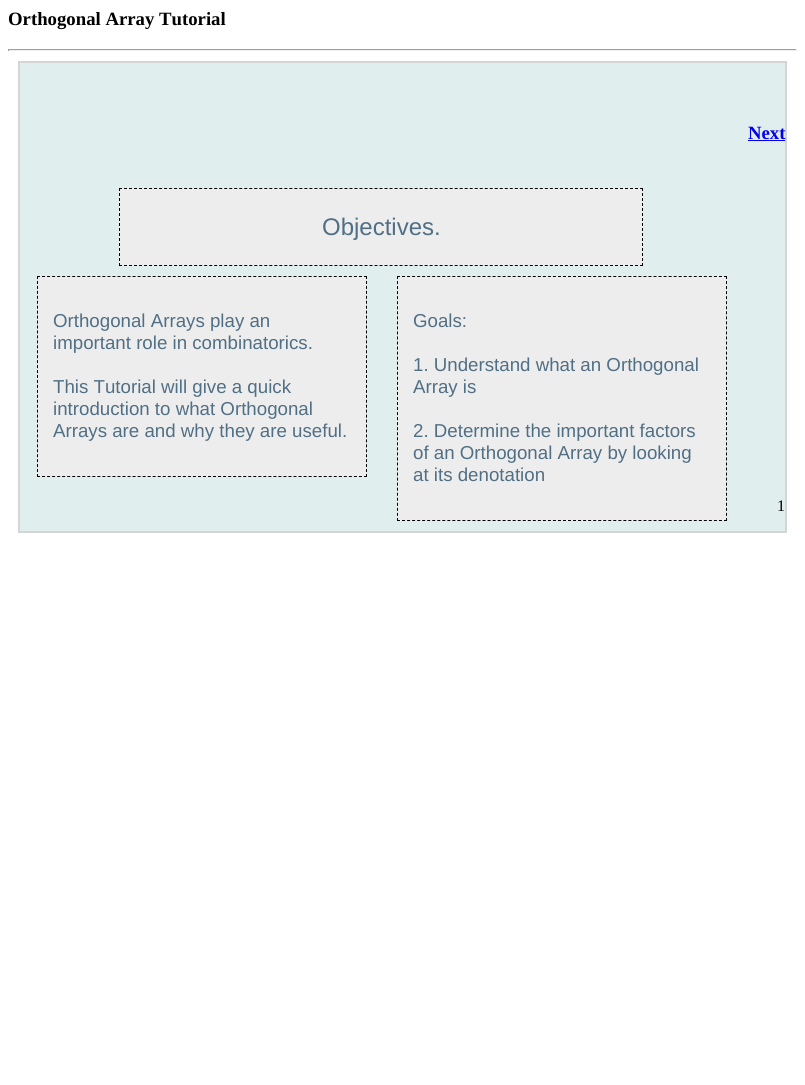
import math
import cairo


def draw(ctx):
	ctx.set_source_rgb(1, 1, 1)
	ctx.paint()
	ctx.select_font_face('Liberation Serif', cairo.FONT_SLANT_NORMAL, cairo.FONT_WEIGHT_BOLD)
	ctx.set_font_size(18.75)
	ctx.set_source_rgb(0, 0, 0)
	ctx.move_to(8, 25)
	ctx.show_text('Orthogonal Array Tutorial')
	ctx.set_source_rgb(0.624, 0.624, 0.624)
	ctx.rectangle(8, 49, 789, 1)
	ctx.fill()
	ctx.set_source_rgb(0.933, 0.933, 0.933)
	ctx.rectangle(796, 49, 1, 2)
	ctx.rectangle(8, 50, 789, 1)
	ctx.fill()
	ctx.set_source_rgb(0.624, 0.624, 0.624)
	ctx.rectangle(8, 49, 1, 2)
	ctx.fill()
	ctx.set_source_rgb(0.878, 0.933, 0.933)
	ctx.rectangle(19, 62, 767, 470)
	ctx.fill_preserve()
	ctx.set_source_rgb(0.835, 0.835, 0.835)
	ctx.stroke()
	ctx.set_source_rgb(0, 0, 0.933)
	ctx.move_to(748, 139)
	ctx.show_text('Next')
	ctx.rectangle(748, 140, 37, 1)
	ctx.fill()
	ctx.set_source_rgb(0.929, 0.929, 0.929)
	ctx.rectangle(119, 188, 524, 78)
	ctx.fill()
	ctx.new_path()
	ctx.move_to(119, 188.5)
	ctx.line_to(643, 188.5)
	ctx.set_source_rgb(0, 0, 0)
	ctx.set_line_width(1)
	ctx.set_dash([3, 2.01])
	ctx.stroke()
	ctx.new_path()
	ctx.move_to(642.5, 188)
	ctx.line_to(642.5, 266)
	ctx.set_dash([3, 2])
	ctx.stroke()
	ctx.new_path()
	ctx.move_to(119, 265.5)
	ctx.line_to(643, 265.5)
	ctx.set_dash([3, 2.01])
	ctx.stroke()
	ctx.new_path()
	ctx.move_to(119.5, 188)
	ctx.line_to(119.5, 266)
	ctx.set_dash([3, 2])
	ctx.stroke()
	ctx.select_font_face('Liberation Sans')
	ctx.set_font_size(24)
	ctx.set_source_rgb(0.314, 0.435, 0.522)
	ctx.move_to(322, 235)
	ctx.show_text('Objectives.')
	ctx.set_source_rgb(0.929, 0.929, 0.929)
	ctx.rectangle(37, 276, 330, 201)
	ctx.fill()
	ctx.new_path()
	ctx.move_to(37, 276.5)
	ctx.line_to(367, 276.5)
	ctx.set_source_rgb(0, 0, 0)
	ctx.set_dash([3, 2.03])
	ctx.stroke()
	ctx.new_path()
	ctx.move_to(366.5, 276)
	ctx.line_to(366.5, 477)
	ctx.set_dash([3, 1.95])
	ctx.stroke()
	ctx.new_path()
	ctx.move_to(37, 476.5)
	ctx.line_to(367, 476.5)
	ctx.set_dash([3, 2.03])
	ctx.stroke()
	ctx.new_path()
	ctx.move_to(37.5, 276)
	ctx.line_to(37.5, 477)
	ctx.set_dash([3, 1.95])
	ctx.stroke()
	ctx.set_font_size(18.7)
	ctx.set_source_rgb(0.314, 0.435, 0.522)
	for x, y, s in [
		(53, 327, 'Orthogonal Arrays play an'),
		(53, 349, 'important role in combinatorics.'),
		(53, 393, 'This Tutorial will give a quick'),
		(53, 415, 'introduction to what Orthogonal'),
		(53, 437, 'Arrays are and why they are useful.'),
	]:
		ctx.move_to(x, y)
		ctx.show_text(s)
	ctx.set_source_rgb(0.929, 0.929, 0.929)
	ctx.rectangle(397, 276, 330, 245)
	ctx.fill()
	ctx.new_path()
	ctx.move_to(397, 276.5)
	ctx.line_to(727, 276.5)
	ctx.set_source_rgb(0, 0, 0)
	ctx.set_dash([3, 2.03])
	ctx.stroke()
	ctx.new_path()
	ctx.move_to(726.5, 276)
	ctx.line_to(726.5, 521)
	ctx.set_dash([3, 2.04])
	ctx.stroke()
	ctx.new_path()
	ctx.move_to(397, 520.5)
	ctx.line_to(727, 520.5)
	ctx.set_dash([3, 2.03])
	ctx.stroke()
	ctx.new_path()
	ctx.move_to(397.5, 276)
	ctx.line_to(397.5, 521)
	ctx.set_dash([3, 2.04])
	ctx.stroke()
	ctx.set_source_rgb(0.314, 0.435, 0.522)
	for x, y, s in [
		(413, 327, 'Goals:'),
		(413, 371, '1. Understand what an Orthogonal'),
		(413, 393, 'Array is'),
		(413, 437, '2. Determine the important factors'),
		(413, 459, 'of an Orthogonal Array by looking'),
		(413, 481, 'at its denotation'),
	]:
		ctx.move_to(x, y)
		ctx.show_text(s)
	ctx.select_font_face('Liberation Serif')
	ctx.set_font_size(16)
	ctx.set_source_rgb(0, 0, 0)
	ctx.move_to(777, 511)
	ctx.show_text('1')


surface = cairo.ImageSurface(cairo.FORMAT_RGB24, 805, 1085)
ctx = cairo.Context(surface)
options = cairo.FontOptions()
options.set_hint_metrics(cairo.HINT_METRICS_OFF)
options.set_hint_style(cairo.HINT_STYLE_NONE)
ctx.set_font_options(options)
ctx.set_miter_limit(4)
draw(ctx)
surface.write_to_png('image.png')
